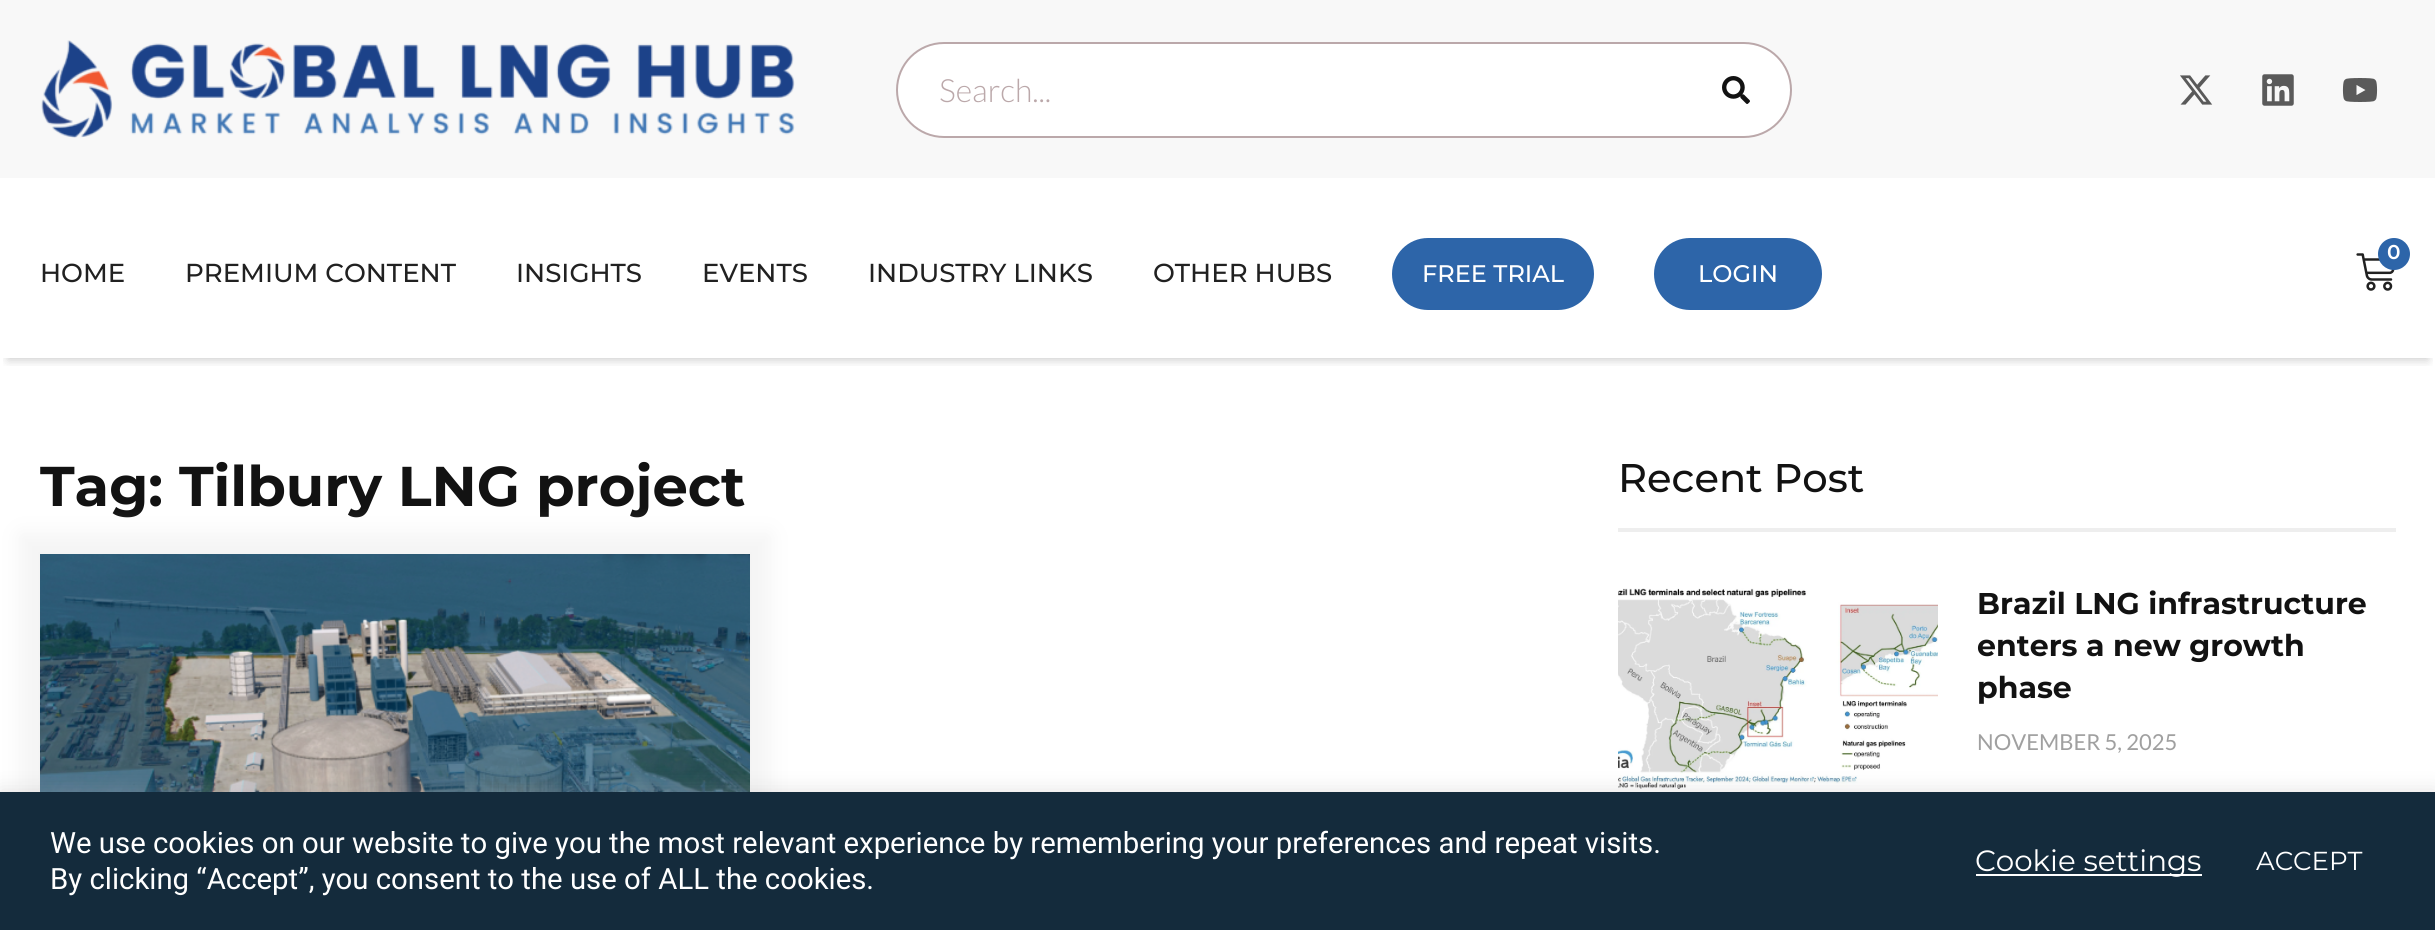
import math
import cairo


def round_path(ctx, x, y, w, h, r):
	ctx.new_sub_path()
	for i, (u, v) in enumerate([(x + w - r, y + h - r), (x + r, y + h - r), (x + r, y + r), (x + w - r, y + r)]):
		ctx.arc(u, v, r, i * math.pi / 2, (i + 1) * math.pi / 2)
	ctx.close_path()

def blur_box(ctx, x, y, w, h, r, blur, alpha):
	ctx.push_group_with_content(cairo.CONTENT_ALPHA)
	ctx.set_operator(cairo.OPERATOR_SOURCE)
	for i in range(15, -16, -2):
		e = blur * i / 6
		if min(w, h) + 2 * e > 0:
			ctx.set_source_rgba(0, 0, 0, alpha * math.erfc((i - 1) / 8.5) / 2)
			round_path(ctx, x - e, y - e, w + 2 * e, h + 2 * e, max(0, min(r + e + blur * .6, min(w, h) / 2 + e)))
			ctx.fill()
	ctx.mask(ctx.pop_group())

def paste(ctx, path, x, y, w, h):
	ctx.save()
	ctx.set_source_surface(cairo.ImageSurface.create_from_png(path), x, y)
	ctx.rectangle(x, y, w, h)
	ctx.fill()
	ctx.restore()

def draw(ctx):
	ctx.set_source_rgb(1, 1, 1)
	ctx.paint()
	ctx.set_source_rgb(0.969, 0.969, 0.969)
	ctx.rectangle(0, 0, 2435, 178)
	ctx.fill()
	paste(ctx, 'media/1.png', 41, 40, 754, 98)
	ctx.set_source_rgb(1, 1, 1)
	round_path(ctx, 897, 43, 894, 94, 47)
	ctx.fill_preserve()
	ctx.set_source_rgb(0.733, 0.659, 0.667)
	ctx.stroke()
	ctx.select_font_face('Lato Light')
	ctx.set_font_size(32)
	ctx.move_to(939, 102)
	ctx.show_text('Search...')
	paste(ctx, 'media/2.png', 1722, 76, 28, 28)
	paste(ctx, 'media/3.png', 2180, 75, 33, 30)
	paste(ctx, 'media/4.png', 2262, 74, 32, 32)
	paste(ctx, 'media/5.png', 2342, 78, 36, 24)
	ctx.save()
	ctx.rectangle(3, 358, 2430, 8)
	ctx.clip()
	ctx.set_source_rgb(0, 0, 0)
	blur_box(ctx, 8, 196, 2420, 164, 0, 5, 0.2)
	ctx.restore()
	paste(ctx, 'media/6.png', 2356, 253, 39, 38)
	ctx.set_source_rgb(0.176, 0.396, 0.663)
	ctx.arc(2394, 254, 16, 0, 2 * math.pi)
	ctx.fill()
	ctx.select_font_face('Montserrat SemiBold')
	ctx.set_font_size(20)
	ctx.set_source_rgb(1, 1, 1)
	ctx.move_to(2387, 259)
	ctx.show_text('0')
	ctx.select_font_face('Montserrat Medium')
	ctx.set_font_size(26)
	ctx.set_source_rgb(0.129, 0.129, 0.129)
	for x, y, s in [
		(40, 282, 'HOME'),
		(185, 282, 'PREMIUM CONTENT'),
		(516, 282, 'INSIGHTS'),
		(702, 282, 'EVENTS'),
		(868, 282, 'INDUSTRY LINKS'),
		(1153, 282, 'OTHER HUBS'),
	]:
		ctx.move_to(x, y)
		ctx.show_text(s)
	ctx.set_source_rgb(0.176, 0.396, 0.663)
	round_path(ctx, 1392, 238, 202, 72, 36)
	ctx.fill()
	ctx.set_font_size(24)
	ctx.set_source_rgb(1, 1, 1)
	ctx.move_to(1422, 282)
	ctx.show_text('FREE TRIAL')
	ctx.set_source_rgb(0.176, 0.396, 0.663)
	round_path(ctx, 1654, 238, 168, 72, 36)
	ctx.fill()
	ctx.set_source_rgb(1, 1, 1)
	ctx.move_to(1698, 282)
	ctx.show_text('LOGIN')
	ctx.select_font_face('Montserrat', cairo.FONT_SLANT_NORMAL, cairo.FONT_WEIGHT_BOLD)
	ctx.set_font_size(56)
	ctx.set_source_rgb(0.071, 0.071, 0.071)
	ctx.move_to(40, 506)
	ctx.show_text('Tag: Tilbury LNG project')
	ctx.set_source_rgb(0.957, 0.957, 0.957)
	blur_box(ctx, 20, 534, 750, 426, 0, 10, 1)
	paste(ctx, 'media/7.png', 40, 554, 710, 238)
	ctx.select_font_face('Montserrat Medium')
	ctx.set_font_size(40)
	ctx.set_source_rgb(0.071, 0.071, 0.071)
	ctx.move_to(1618, 492)
	ctx.show_text('Recent Post')
	ctx.set_source_rgb(0.933, 0.933, 0.933)
	ctx.rectangle(1618, 528, 778, 4)
	ctx.fill()
	paste(ctx, 'media/8.png', 1618, 588, 320, 201)
	ctx.select_font_face('Montserrat', cairo.FONT_SLANT_NORMAL, cairo.FONT_WEIGHT_BOLD)
	ctx.set_font_size(30)
	ctx.set_source_rgb(0.071, 0.071, 0.071)
	for x, y, s in [
		(1977, 614, 'Brazil LNG infrastructure'),
		(1977, 656, 'enters a new growth'),
		(1977, 698, 'phase'),
	]:
		ctx.move_to(x, y)
		ctx.show_text(s)
	ctx.select_font_face('Lato')
	ctx.set_font_size(22)
	ctx.set_source_rgb(0.627, 0.627, 0.627)
	ctx.move_to(1977, 750)
	ctx.show_text('NOVEMBER 5, 2025')
	ctx.set_source_rgb(0.675, 0.671, 0.671)
	blur_box(ctx, 0, 790, 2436, 138, 0, 10, 0.3)
	ctx.set_source_rgb(0.082, 0.169, 0.235)
	ctx.rectangle(0, 792, 2435, 138)
	ctx.fill()
	ctx.select_font_face('Roboto')
	ctx.set_font_size(29.33)
	ctx.set_source_rgb(1, 1, 1)
	ctx.move_to(50, 853)
	ctx.show_text('We use cookies on our website to give you the most relevant experience by remembering your preferences and repeat visits.')
	ctx.move_to(50, 889)
	ctx.show_text('By clicking “Accept”, you consent to the use of ALL the cookies.')
	ctx.rectangle(1976, 874, 226, 2)
	ctx.fill()
	ctx.select_font_face('Montserrat')
	ctx.move_to(1975, 871)
	ctx.show_text('Cookie settings')
	ctx.set_font_size(26)
	ctx.move_to(2256, 870)
	ctx.show_text('ACCEPT')


surface = cairo.ImageSurface(cairo.FORMAT_RGB24, 2435, 930)
ctx = cairo.Context(surface)
options = cairo.FontOptions()
options.set_hint_metrics(cairo.HINT_METRICS_OFF)
options.set_hint_style(cairo.HINT_STYLE_NONE)
ctx.set_font_options(options)
ctx.set_miter_limit(4)
draw(ctx)
surface.write_to_png('image.png')
